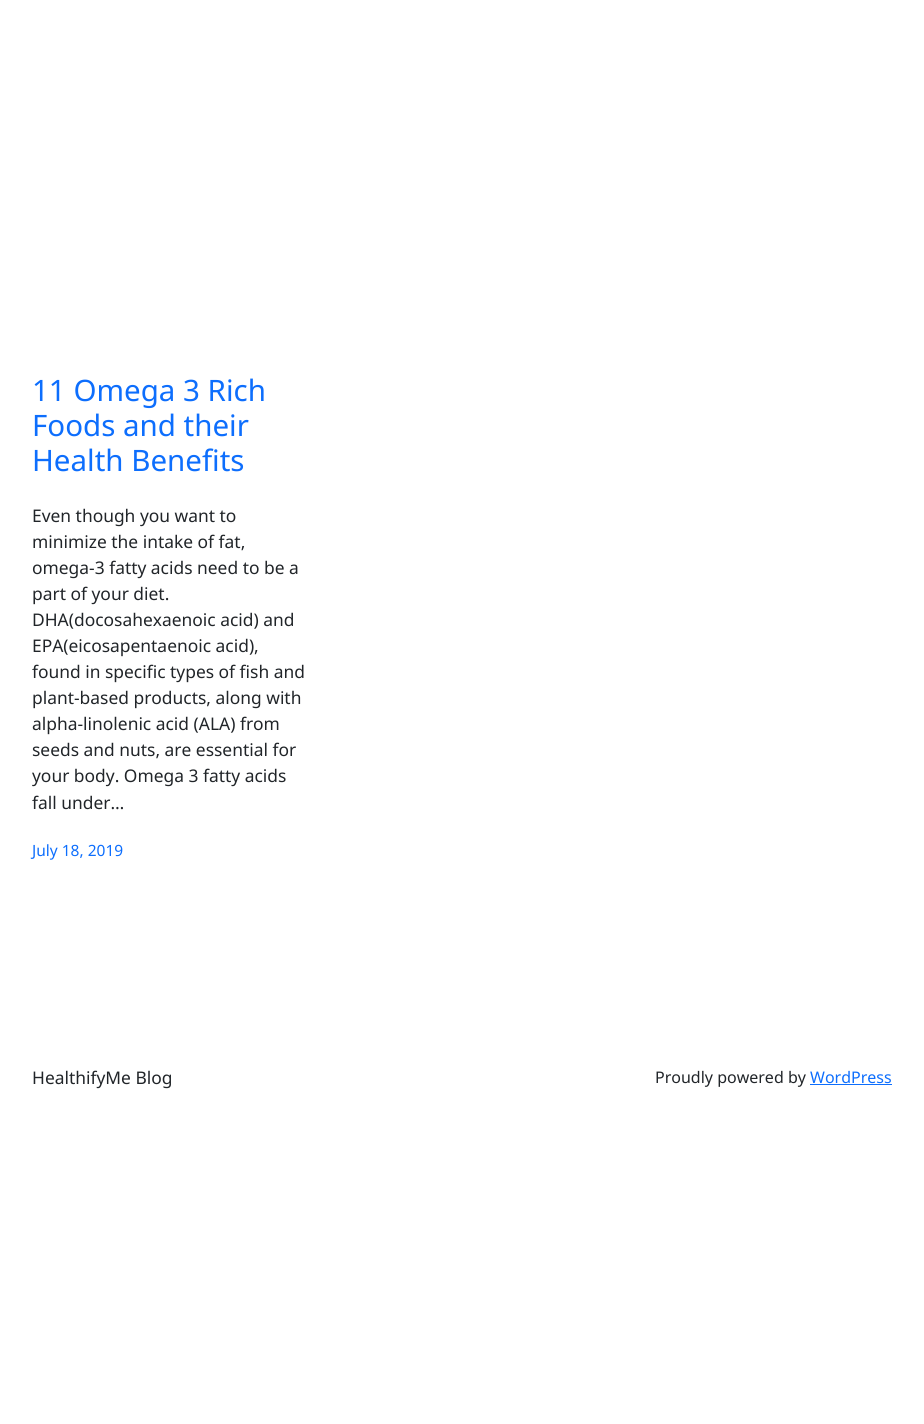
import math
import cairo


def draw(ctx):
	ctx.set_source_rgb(1, 1, 1)
	ctx.paint()
	ctx.select_font_face('Noto Sans')
	ctx.set_font_size(29.5)
	ctx.set_source_rgb(0.051, 0.431, 0.992)
	for x, y, s in [
		(32, 401, '11 Omega 3 Rich'),
		(32, 436, 'Foods and their'),
		(32, 471, 'Health Benefits'),
	]:
		ctx.move_to(x, y)
		ctx.show_text(s)
	ctx.set_font_size(17.4)
	ctx.set_source_rgb(0.129, 0.145, 0.161)
	for x, y, s in [
		(32, 522, 'Even though you want to'),
		(32, 548, 'minimize the intake of fat,'),
		(32, 574, 'omega-3 fatty acids need to be a'),
		(32, 600, 'part of your diet.'),
		(32, 626, 'DHA(docosahexaenoic acid) and'),
		(32, 652, 'EPA(eicosapentaenoic acid),'),
		(32, 678, 'found in specific types of fish and'),
		(32, 704, 'plant-based products, along with'),
		(32, 730, 'alpha-linolenic acid (ALA) from'),
		(32, 756, 'seeds and nuts, are essential for'),
		(32, 782, 'your body. Omega 3 fatty acids'),
		(32, 809, 'fall under…'),
	]:
		ctx.move_to(x, y)
		ctx.show_text(s)
	ctx.set_font_size(15.5)
	ctx.set_source_rgb(0.051, 0.431, 0.992)
	ctx.move_to(32, 856)
	ctx.show_text('July 18, 2019')
	ctx.set_font_size(17.4)
	ctx.set_source_rgb(0.129, 0.145, 0.161)
	ctx.move_to(32, 1084)
	ctx.show_text('HealthifyMe Blog')
	ctx.set_font_size(16)
	ctx.move_to(655, 1083)
	ctx.show_text('Proudly powered by')
	ctx.set_source_rgb(0.051, 0.431, 0.992)
	ctx.move_to(810, 1083)
	ctx.show_text('WordPress')
	ctx.rectangle(810, 1084, 82, 1)
	ctx.fill()


surface = cairo.ImageSurface(cairo.FORMAT_RGB24, 924, 1424)
ctx = cairo.Context(surface)
options = cairo.FontOptions()
options.set_hint_metrics(cairo.HINT_METRICS_OFF)
options.set_hint_style(cairo.HINT_STYLE_NONE)
ctx.set_font_options(options)
ctx.set_miter_limit(4)
draw(ctx)
surface.write_to_png('image.png')
